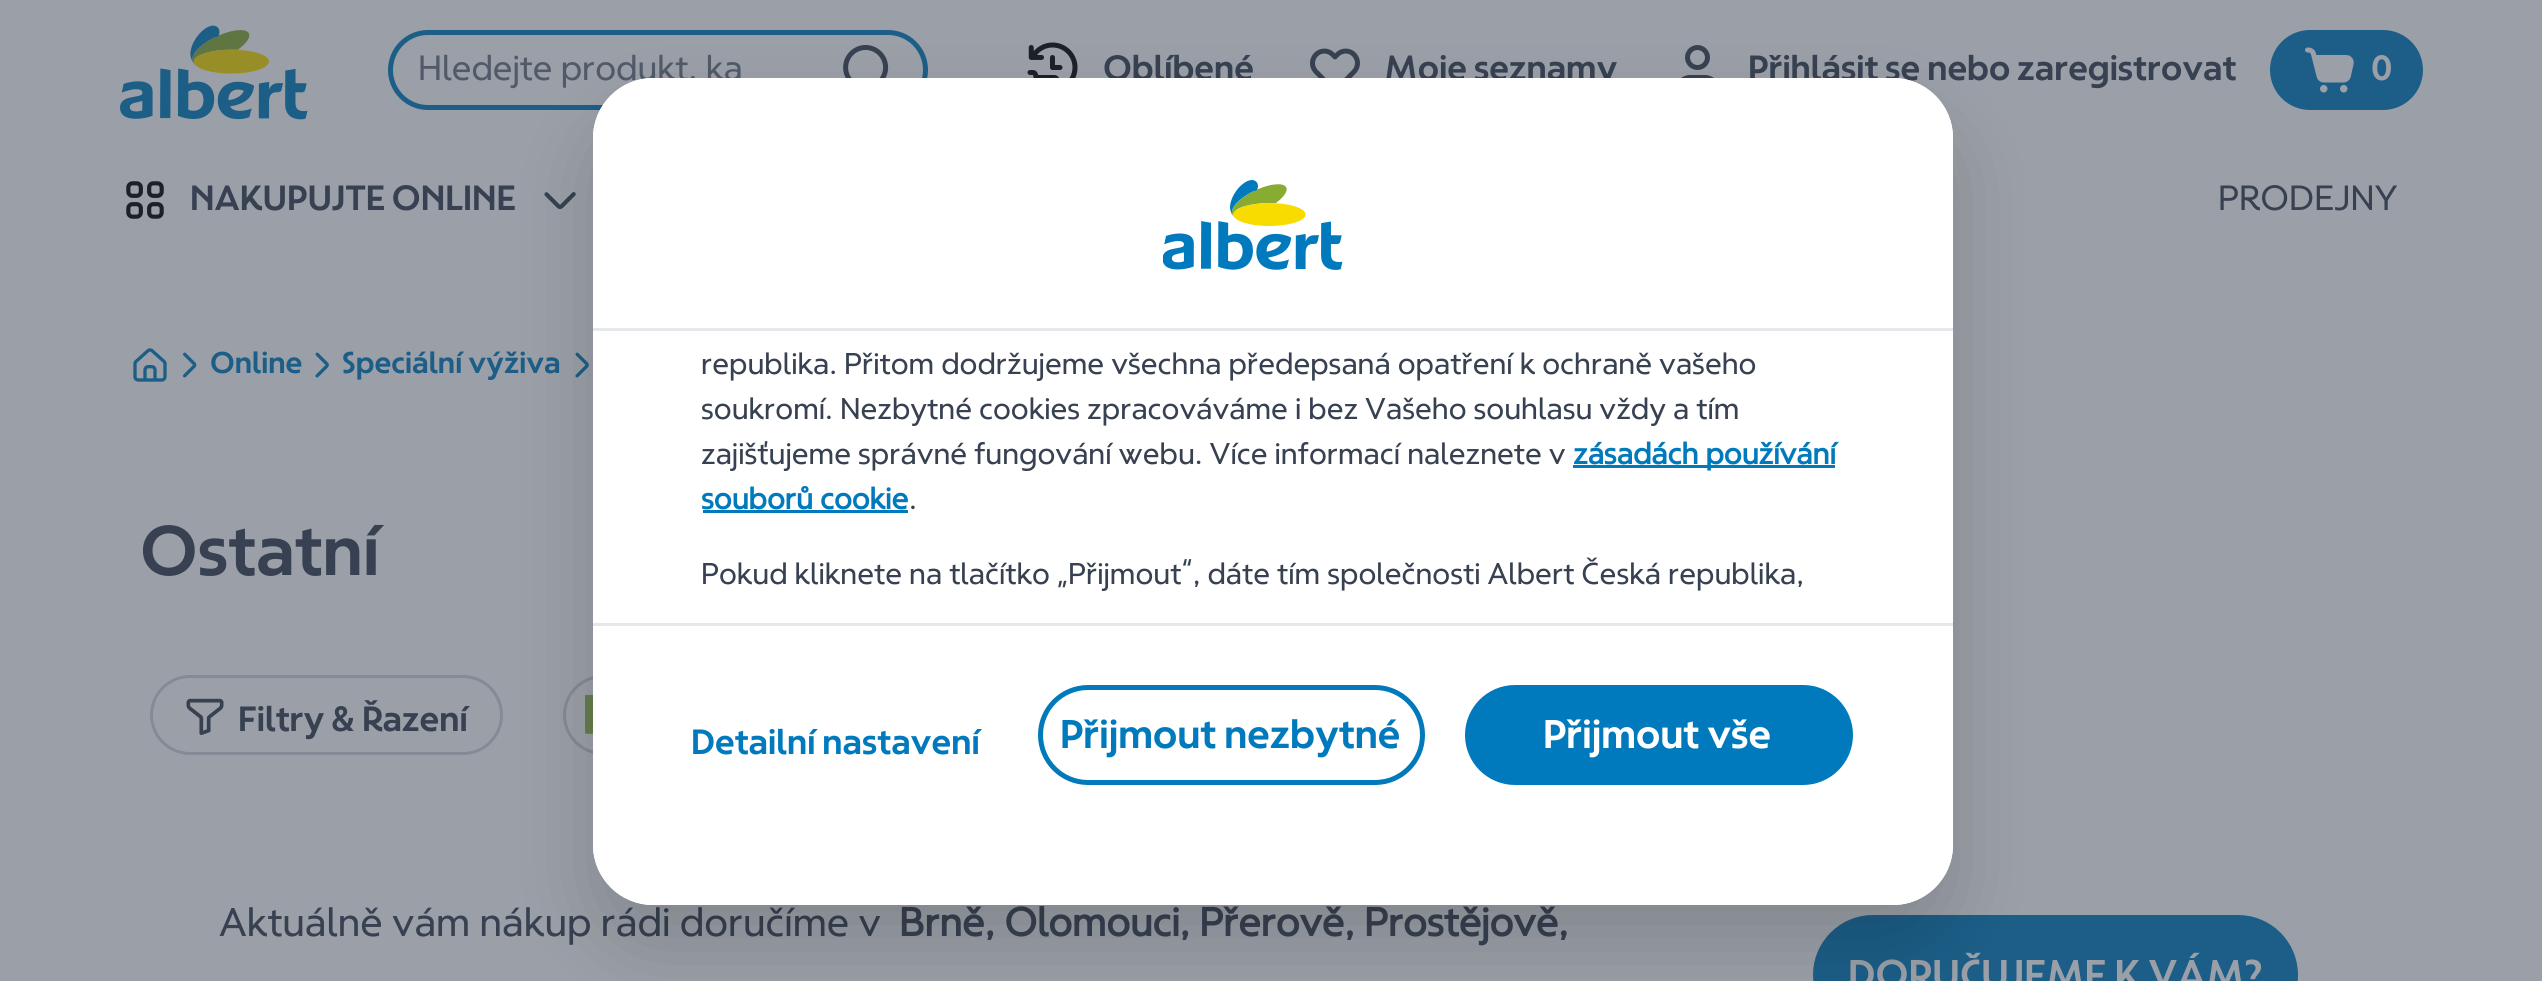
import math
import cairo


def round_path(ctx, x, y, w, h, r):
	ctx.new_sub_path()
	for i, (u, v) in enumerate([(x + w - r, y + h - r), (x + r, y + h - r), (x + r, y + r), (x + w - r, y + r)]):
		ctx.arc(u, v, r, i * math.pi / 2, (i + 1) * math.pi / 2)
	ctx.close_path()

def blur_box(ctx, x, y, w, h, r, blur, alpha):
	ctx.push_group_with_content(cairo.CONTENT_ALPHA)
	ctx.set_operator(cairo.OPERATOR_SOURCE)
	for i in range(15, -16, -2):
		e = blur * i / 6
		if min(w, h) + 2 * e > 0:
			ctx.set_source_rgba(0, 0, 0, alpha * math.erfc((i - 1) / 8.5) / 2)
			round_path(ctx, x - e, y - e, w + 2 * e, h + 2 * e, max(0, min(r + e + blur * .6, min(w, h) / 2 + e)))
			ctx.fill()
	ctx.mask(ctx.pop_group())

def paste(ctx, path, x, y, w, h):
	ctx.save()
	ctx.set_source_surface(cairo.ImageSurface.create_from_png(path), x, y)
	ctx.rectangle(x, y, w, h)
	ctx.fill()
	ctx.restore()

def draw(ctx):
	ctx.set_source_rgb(0.608, 0.627, 0.659)
	ctx.paint()
	paste(ctx, 'media/1.png', 120, 25, 188, 95)
	round_path(ctx, 390.5, 32.5, 535, 75, 37.5)
	ctx.set_source_rgb(0.11, 0.369, 0.529)
	ctx.set_line_width(5)
	ctx.stroke()
	ctx.select_font_face('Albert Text')
	ctx.set_font_size(35)
	ctx.set_source_rgb(0.318, 0.353, 0.412)
	ctx.move_to(418, 80)
	ctx.show_text('Hledejte produkt, ka')
	paste(ctx, 'media/2.png', 843, 45, 46, 33)
	paste(ctx, 'media/3.png', 1027, 42, 51, 36)
	ctx.select_font_face('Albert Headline', cairo.FONT_SLANT_NORMAL, cairo.FONT_WEIGHT_BOLD)
	ctx.set_source_rgb(0.216, 0.255, 0.318)
	ctx.move_to(1103, 80)
	ctx.show_text('Oblíbené')
	paste(ctx, 'media/4.png', 1310, 48, 50, 30)
	ctx.move_to(1384, 80)
	ctx.show_text('Moje seznamy')
	paste(ctx, 'media/5.png', 1681, 45, 33, 33)
	ctx.move_to(1748, 80)
	ctx.show_text('Přihlásit se nebo zaregistrovat')
	ctx.set_source_rgb(0.11, 0.369, 0.529)
	round_path(ctx, 2270, 30, 153, 80, 40)
	ctx.fill()
	paste(ctx, 'media/6.png', 2305, 47, 49, 46)
	ctx.set_source_rgb(0.608, 0.627, 0.659)
	ctx.move_to(2371, 80)
	ctx.show_text('0')
	paste(ctx, 'media/7.png', 126, 181, 38, 38)
	ctx.set_source_rgb(0.216, 0.255, 0.318)
	ctx.move_to(190, 210)
	ctx.show_text('NAKUPUJTE ONLINE')
	paste(ctx, 'media/8.png', 544, 192, 32, 17)
	ctx.select_font_face('Albert Text')
	ctx.move_to(2218, 210)
	ctx.show_text('PRODEJNY')
	paste(ctx, 'media/9.png', 133, 348, 34, 34)
	paste(ctx, 'media/10.png', 182, 352, 15, 26)
	ctx.select_font_face('Albert Headline', cairo.FONT_SLANT_NORMAL, cairo.FONT_WEIGHT_BOLD)
	ctx.set_font_size(30)
	ctx.set_source_rgb(0.11, 0.369, 0.529)
	ctx.move_to(210, 373)
	ctx.show_text('Online')
	paste(ctx, 'media/11.png', 315, 352, 14, 26)
	ctx.move_to(342, 373)
	ctx.show_text('Speciální výživa')
	paste(ctx, 'media/11.png', 575, 352, 14, 26)
	ctx.set_font_size(70)
	ctx.set_source_rgb(0.216, 0.255, 0.318)
	ctx.move_to(140, 575)
	ctx.show_text('Ostatní')
	round_path(ctx, 151.5, 676.5, 350, 77, 38.5)
	ctx.set_source_rgb(0.518, 0.545, 0.588)
	ctx.set_line_width(3)
	ctx.stroke()
	paste(ctx, 'media/12.png', 186, 698, 38, 37)
	ctx.set_font_size(35)
	ctx.set_source_rgb(0.216, 0.255, 0.318)
	ctx.move_to(238, 731)
	ctx.show_text('Filtry & Řazení')
	round_path(ctx, 564.5, 676.5, 172, 77, 38.5)
	ctx.set_source_rgb(0.518, 0.545, 0.588)
	ctx.stroke()
	paste(ctx, 'media/13.png', 585, 695, 8, 39)
	ctx.select_font_face('Albert Text')
	ctx.set_font_size(40)
	ctx.set_source_rgb(0.216, 0.255, 0.318)
	ctx.move_to(219, 936)
	ctx.show_text('Aktuálně vám nákup rádi doručíme v')
	ctx.select_font_face('Albert Text', cairo.FONT_SLANT_NORMAL, cairo.FONT_WEIGHT_BOLD)
	ctx.move_to(899, 936)
	ctx.show_text('Brně, Olomouci, Přerově, Prostějově,')
	ctx.set_source_rgb(0.11, 0.369, 0.529)
	round_path(ctx, 1815.5, 917.5, 480, 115, 57.5)
	ctx.fill_preserve()
	ctx.set_line_width(5)
	ctx.stroke()
	ctx.select_font_face('Albert Headline', cairo.FONT_SLANT_NORMAL, cairo.FONT_WEIGHT_BOLD)
	ctx.set_source_rgb(0.608, 0.627, 0.659)
	ctx.move_to(1848, 988)
	ctx.show_text('DORUČUJEME K VÁM?')
	ctx.set_source_rgb(0, 0, 0)
	blur_box(ctx, 593, 118, 1360, 827, 60, 40, 0.16)
	ctx.set_source_rgb(1, 1, 1)
	round_path(ctx, 593, 78, 1360, 827, 60)
	ctx.fill()
	ctx.new_path()
	ctx.move_to(653, 78)
	ctx.line_to(1893, 78)
	ctx.curve_to(1926, 78, 1953, 105, 1953, 138)
	ctx.line_to(1953, 330)
	ctx.line_to(593, 330)
	ctx.line_to(593, 138)
	ctx.curve_to(593, 105, 620, 78, 653, 78)
	ctx.close_path()
	ctx.fill()
	ctx.set_source_rgb(0.898, 0.906, 0.922)
	ctx.rectangle(593, 328, 1360, 3)
	ctx.fill()
	paste(ctx, 'media/14.png', 1163, 180, 180, 90)
	ctx.select_font_face('Albert Text')
	ctx.set_font_size(30)
	ctx.set_source_rgb(0.216, 0.255, 0.318)
	for x, y, s in [
		(701, 374, 'republika. Přitom dodržujeme všechna předepsaná opatření k ochraně vašeho'),
		(701, 419, 'soukromí. Nezbytné cookies zpracováváme i bez Vašeho souhlasu vždy a tím'),
		(701, 464, 'zajišťujeme správné fungování webu. Více informací naleznete v'),
	]:
		ctx.move_to(x, y)
		ctx.show_text(s)
	ctx.set_source_rgb(0, 0.478, 0.737)
	ctx.rectangle(1573, 465, 262, 3)
	ctx.fill()
	ctx.select_font_face('Albert Text', cairo.FONT_SLANT_NORMAL, cairo.FONT_WEIGHT_BOLD)
	ctx.move_to(1573, 464)
	ctx.show_text('zásadách používání')
	ctx.move_to(701, 509)
	ctx.show_text('souborů cookie')
	ctx.rectangle(703, 510, 205, 3)
	ctx.fill()
	ctx.select_font_face('Albert Text')
	ctx.set_source_rgb(0.216, 0.255, 0.318)
	ctx.move_to(909, 509)
	ctx.show_text('.')
	ctx.move_to(701, 584)
	ctx.show_text('Pokud kliknete na tlačítko „Přijmout“, dáte tím společnosti Albert Česká republika,')
	ctx.set_source_rgb(1, 1, 1)
	ctx.new_path()
	ctx.move_to(593, 623)
	ctx.line_to(1953, 623)
	ctx.line_to(1953, 845)
	ctx.curve_to(1953, 878, 1926, 905, 1893, 905)
	ctx.line_to(653, 905)
	ctx.curve_to(620, 905, 593, 878, 593, 845)
	ctx.close_path()
	ctx.fill()
	ctx.set_source_rgb(0.898, 0.906, 0.922)
	ctx.rectangle(593, 623, 1360, 3)
	ctx.fill()
	ctx.select_font_face('Albert Headline', cairo.FONT_SLANT_NORMAL, cairo.FONT_WEIGHT_BOLD)
	ctx.set_font_size(35)
	ctx.set_source_rgb(0, 0.478, 0.737)
	ctx.move_to(691, 754)
	ctx.show_text('Detailní nastavení')
	round_path(ctx, 1040.5, 687.5, 382, 95, 47.5)
	ctx.stroke()
	ctx.set_font_size(40)
	ctx.move_to(1060, 748)
	ctx.show_text('Přijmout nezbytné')
	round_path(ctx, 1467.5, 687.5, 383, 95, 47.5)
	ctx.fill_preserve()
	ctx.stroke()
	ctx.set_source_rgb(1, 1, 1)
	ctx.move_to(1543, 748)
	ctx.show_text('Přijmout vše')


surface = cairo.ImageSurface(cairo.FORMAT_RGB24, 2542, 981)
ctx = cairo.Context(surface)
options = cairo.FontOptions()
options.set_hint_metrics(cairo.HINT_METRICS_OFF)
options.set_hint_style(cairo.HINT_STYLE_NONE)
ctx.set_font_options(options)
ctx.set_miter_limit(4)
draw(ctx)
surface.write_to_png('image.png')
